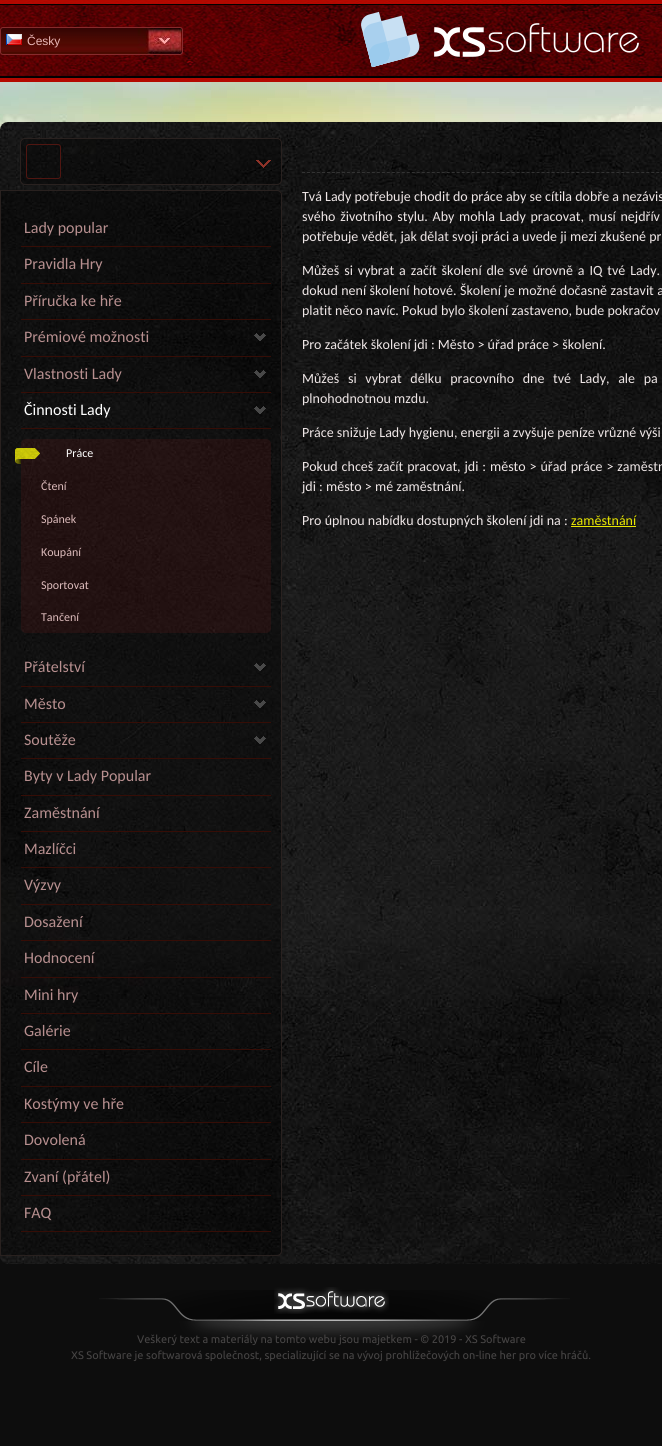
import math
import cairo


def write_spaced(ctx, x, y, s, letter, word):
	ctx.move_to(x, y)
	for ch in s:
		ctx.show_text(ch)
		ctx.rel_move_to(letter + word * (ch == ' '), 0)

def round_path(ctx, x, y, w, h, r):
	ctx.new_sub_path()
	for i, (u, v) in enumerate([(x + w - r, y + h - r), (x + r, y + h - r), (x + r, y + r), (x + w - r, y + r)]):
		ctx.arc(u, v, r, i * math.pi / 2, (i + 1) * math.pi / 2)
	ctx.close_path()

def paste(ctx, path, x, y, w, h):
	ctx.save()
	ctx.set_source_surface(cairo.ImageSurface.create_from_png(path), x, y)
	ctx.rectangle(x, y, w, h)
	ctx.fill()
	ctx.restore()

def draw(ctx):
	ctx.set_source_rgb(0.051, 0.051, 0.051)
	ctx.paint()
	paste(ctx, 'media/1.png', 0, 82, 662, 48)
	paste(ctx, 'media/2.png', 0, 0, 662, 82)
	paste(ctx, 'media/3.png', 0, 28, 182, 27)
	round_path(ctx, 0.5, 27.5, 182, 27, 2.5)
	ctx.set_source_rgb(0.529, 0.169, 0.176)
	ctx.set_line_width(1)
	ctx.stroke()
	paste(ctx, 'media/4.png', 6, 34, 16, 11)
	ctx.select_font_face('Liberation Sans')
	ctx.set_font_size(12)
	ctx.set_source_rgb(0.914, 0.718, 0.718)
	ctx.move_to(27, 45)
	ctx.show_text('Česky')
	paste(ctx, 'media/5.png', 361, 11, 278, 57)
	paste(ctx, 'media/6.png', 0, 122, 662, 1142)
	ctx.set_source_rgba(0, 0, 0, 0.4)
	round_path(ctx, 20.5, 138.5, 261, 46, 4.5)
	ctx.fill_preserve()
	ctx.set_source_rgb(0.161, 0.129, 0.122)
	ctx.stroke()
	round_path(ctx, 26.5, 144.5, 34, 34, 2.5)
	ctx.set_source_rgb(0.314, 0.086, 0.067)
	ctx.stroke()
	paste(ctx, 'media/7.png', 256, 160, 15, 8)
	ctx.set_source_rgba(0, 0, 0, 0.4)
	ctx.new_path()
	ctx.move_to(0.5, 190.5)
	ctx.line_to(277, 190.5)
	ctx.curve_to(279.5, 190.5, 281.5, 192.5, 281.5, 195)
	ctx.line_to(281.5, 1251)
	ctx.curve_to(281.5, 1253.5, 279.5, 1255.5, 277, 1255.5)
	ctx.line_to(0.5, 1255.5)
	ctx.close_path()
	ctx.fill_preserve()
	ctx.set_source_rgb(0.161, 0.129, 0.122)
	ctx.stroke()
	ctx.set_source_rgb(0.212, 0.051, 0.027)
	ctx.rectangle(21, 246, 250, 1)
	ctx.fill()
	ctx.select_font_face('Carlito')
	ctx.set_font_size(16)
	ctx.set_source_rgb(0.718, 0.561, 0.561)
	ctx.move_to(24, 233)
	ctx.show_text('Lady popular')
	ctx.set_source_rgb(0.212, 0.051, 0.027)
	ctx.rectangle(21, 283, 250, 1)
	ctx.fill()
	ctx.set_source_rgb(0.718, 0.561, 0.561)
	ctx.move_to(24, 269)
	ctx.show_text('Pravidla Hry')
	ctx.set_source_rgb(0.212, 0.051, 0.027)
	ctx.rectangle(21, 319, 250, 1)
	ctx.fill()
	ctx.set_source_rgb(0.718, 0.561, 0.561)
	ctx.move_to(24, 306)
	ctx.show_text('Příručka ke hře')
	ctx.set_source_rgb(0.212, 0.051, 0.027)
	ctx.rectangle(21, 356, 250, 1)
	ctx.fill()
	ctx.set_source_rgb(0.718, 0.561, 0.561)
	ctx.move_to(24, 342)
	ctx.show_text('Prémiové možnosti')
	paste(ctx, 'media/8.png', 254, 333, 12, 8)
	ctx.set_source_rgb(0.212, 0.051, 0.027)
	ctx.rectangle(21, 392, 250, 1)
	ctx.fill()
	ctx.set_source_rgb(0.718, 0.561, 0.561)
	ctx.move_to(24, 379)
	ctx.show_text('Vlastnosti Lady')
	paste(ctx, 'media/9.png', 254, 370, 12, 8)
	ctx.set_source_rgb(0.212, 0.051, 0.027)
	ctx.rectangle(21, 428, 250, 1)
	ctx.fill()
	ctx.set_source_rgb(1, 1, 1)
	ctx.move_to(24, 415)
	ctx.show_text('Činnosti Lady')
	paste(ctx, 'media/10.png', 254, 406, 12, 8)
	ctx.set_source_rgba(0.655, 0.145, 0.145, 0.13)
	round_path(ctx, 21, 439, 250, 194, 5)
	ctx.fill()
	paste(ctx, 'media/11.png', 15, 448, 25, 16)
	ctx.set_font_size(12)
	ctx.set_source_rgb(1, 1, 1)
	ctx.move_to(66, 457)
	ctx.show_text('Práce')
	ctx.set_source_rgb(0.859, 0.729, 0.729)
	for x, y, s in [
		(41, 490, 'Čtení'),
		(41, 523, 'Spánek'),
		(41, 556, 'Koupání'),
		(41, 589, 'Sportovat'),
		(41, 621, 'Tančení'),
	]:
		ctx.move_to(x, y)
		ctx.show_text(s)
	ctx.set_source_rgb(0.212, 0.051, 0.027)
	ctx.rectangle(21, 686, 250, 1)
	ctx.fill()
	ctx.set_font_size(16)
	ctx.set_source_rgb(0.718, 0.561, 0.561)
	ctx.move_to(24, 672)
	ctx.show_text('Přátelství')
	paste(ctx, 'media/12.png', 254, 663, 12, 8)
	ctx.set_source_rgb(0.212, 0.051, 0.027)
	ctx.rectangle(21, 722, 250, 1)
	ctx.fill()
	ctx.set_source_rgb(0.718, 0.561, 0.561)
	ctx.move_to(24, 709)
	ctx.show_text('Město')
	paste(ctx, 'media/13.png', 254, 700, 12, 8)
	ctx.set_source_rgb(0.212, 0.051, 0.027)
	ctx.rectangle(21, 758, 250, 1)
	ctx.fill()
	ctx.set_source_rgb(0.718, 0.561, 0.561)
	ctx.move_to(24, 745)
	ctx.show_text('Soutěže')
	paste(ctx, 'media/14.png', 254, 736, 12, 8)
	ctx.set_source_rgb(0.212, 0.051, 0.027)
	ctx.rectangle(21, 795, 250, 1)
	ctx.fill()
	ctx.set_source_rgb(0.718, 0.561, 0.561)
	ctx.move_to(24, 781)
	ctx.show_text('Byty v Lady Popular')
	ctx.set_source_rgb(0.212, 0.051, 0.027)
	ctx.rectangle(21, 831, 250, 1)
	ctx.fill()
	ctx.set_source_rgb(0.718, 0.561, 0.561)
	ctx.move_to(24, 818)
	ctx.show_text('Zaměstnání')
	ctx.set_source_rgb(0.212, 0.051, 0.027)
	ctx.rectangle(21, 867, 250, 1)
	ctx.fill()
	ctx.set_source_rgb(0.718, 0.561, 0.561)
	ctx.move_to(24, 854)
	ctx.show_text('Mazlíčci')
	ctx.set_source_rgb(0.212, 0.051, 0.027)
	ctx.rectangle(21, 904, 250, 1)
	ctx.fill()
	ctx.set_source_rgb(0.718, 0.561, 0.561)
	ctx.move_to(24, 890)
	ctx.show_text('Výzvy')
	ctx.set_source_rgb(0.212, 0.051, 0.027)
	ctx.rectangle(21, 940, 250, 1)
	ctx.fill()
	ctx.set_source_rgb(0.718, 0.561, 0.561)
	ctx.move_to(24, 927)
	ctx.show_text('Dosažení')
	ctx.set_source_rgb(0.212, 0.051, 0.027)
	ctx.rectangle(21, 977, 250, 1)
	ctx.fill()
	ctx.set_source_rgb(0.718, 0.561, 0.561)
	ctx.move_to(24, 963)
	ctx.show_text('Hodnocení')
	ctx.set_source_rgb(0.212, 0.051, 0.027)
	ctx.rectangle(21, 1013, 250, 1)
	ctx.fill()
	ctx.set_source_rgb(0.718, 0.561, 0.561)
	ctx.move_to(24, 1000)
	ctx.show_text('Mini hry')
	ctx.set_source_rgb(0.212, 0.051, 0.027)
	ctx.rectangle(21, 1049, 250, 1)
	ctx.fill()
	ctx.set_source_rgb(0.718, 0.561, 0.561)
	ctx.move_to(24, 1036)
	ctx.show_text('Galérie')
	ctx.set_source_rgb(0.212, 0.051, 0.027)
	ctx.rectangle(21, 1086, 250, 1)
	ctx.fill()
	ctx.set_source_rgb(0.718, 0.561, 0.561)
	ctx.move_to(24, 1072)
	ctx.show_text('Cíle')
	ctx.set_source_rgb(0.212, 0.051, 0.027)
	ctx.rectangle(21, 1122, 250, 1)
	ctx.fill()
	ctx.set_source_rgb(0.718, 0.561, 0.561)
	ctx.move_to(24, 1109)
	ctx.show_text('Kostýmy ve hře')
	ctx.set_source_rgb(0.212, 0.051, 0.027)
	ctx.rectangle(21, 1159, 250, 1)
	ctx.fill()
	ctx.set_source_rgb(0.718, 0.561, 0.561)
	ctx.move_to(24, 1145)
	ctx.show_text('Dovolená')
	ctx.set_source_rgb(0.212, 0.051, 0.027)
	ctx.rectangle(21, 1195, 250, 1)
	ctx.fill()
	ctx.set_source_rgb(0.718, 0.561, 0.561)
	ctx.move_to(24, 1182)
	ctx.show_text('Zvaní (přátel)')
	ctx.set_source_rgb(0.212, 0.051, 0.027)
	ctx.rectangle(21, 1231, 250, 1)
	ctx.fill()
	ctx.set_source_rgb(0.718, 0.561, 0.561)
	ctx.move_to(24, 1218)
	ctx.show_text('FAQ')
	ctx.new_path()
	ctx.move_to(302, 172.5)
	ctx.line_to(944, 172.5)
	ctx.set_source_rgb(0.2, 0.2, 0.2)
	ctx.set_dash([3, 1.99])
	ctx.stroke()
	ctx.set_font_size(14)
	ctx.set_source_rgb(0.933, 0.902, 0.902)
	ctx.move_to(302, 201)
	ctx.show_text('Tvá Lady potřebuje chodit do práce aby se cítila dobře a nezávis')
	write_spaced(ctx, 302, 221, 'svého životního stylu. Aby mohla Lady pracovat, musí nejdřív', 0, 1.5)
	ctx.move_to(302, 241)
	ctx.show_text('potřebuje vědět, jak dělat svoji práci a uvede ji mezi zkušené pr')
	write_spaced(ctx, 302, 275, 'Můžeš si vybrat a začít školení dle své úrovně a IQ tvé Lady.', 0, 1.75)
	write_spaced(ctx, 302, 295, 'dokud není školení hotové. Školení je možné dočasně zastavit a', 0, 0.25)
	ctx.move_to(302, 315)
	ctx.show_text('platit něco navíc. Pokud bylo školení zastaveno, bude pokračov')
	ctx.move_to(302, 349)
	ctx.show_text('Pro začátek školení jdi : Město > úřad práce > školení.')
	write_spaced(ctx, 302, 383, 'Můžeš si vybrat délku pracovního dne tvé Lady, ale pa', 0, 5.5)
	ctx.move_to(302, 403)
	ctx.show_text('plnohodnotnou mzdu.')
	ctx.move_to(302, 437)
	ctx.show_text('Práce snižuje Lady hygienu, energii a zvyšuje peníze vrůzné výši')
	write_spaced(ctx, 302, 471, 'Pokud chceš začít pracovat, jdi : město > úřad práce > zaměstn', 0, 0.75)
	ctx.move_to(302, 491)
	ctx.show_text('jdi : město > mé zaměstnání.')
	ctx.move_to(302, 525)
	ctx.show_text('Pro úplnou nabídku dostupných školení jdi na :')
	ctx.set_source_rgb(0.91, 0.902, 0.004)
	ctx.move_to(571, 525)
	ctx.show_text('zaměstnání')
	ctx.rectangle(571, 526, 65, 1)
	ctx.fill()
	paste(ctx, 'media/15.png', 99, 1290, 471, 50)
	paste(ctx, 'media/16.png', 274, 1287, 115, 27)
	ctx.select_font_face('Ubuntu')
	ctx.set_font_size(11)
	ctx.set_source_rgb(0.278, 0.271, 0.271)
	ctx.move_to(137, 1343)
	ctx.show_text('Veškerý text a materiály na tomto webu jsou majetkem - © 2019 - XS Software')
	ctx.move_to(71, 1359)
	ctx.show_text('XS Software je softwarová společnost, specializující se na vývoj prohlížečových on-line her pro více hráčů.')


surface = cairo.ImageSurface(cairo.FORMAT_RGB24, 662, 1446)
ctx = cairo.Context(surface)
options = cairo.FontOptions()
options.set_hint_metrics(cairo.HINT_METRICS_OFF)
options.set_hint_style(cairo.HINT_STYLE_NONE)
ctx.set_font_options(options)
ctx.set_miter_limit(4)
draw(ctx)
surface.write_to_png('image.png')
